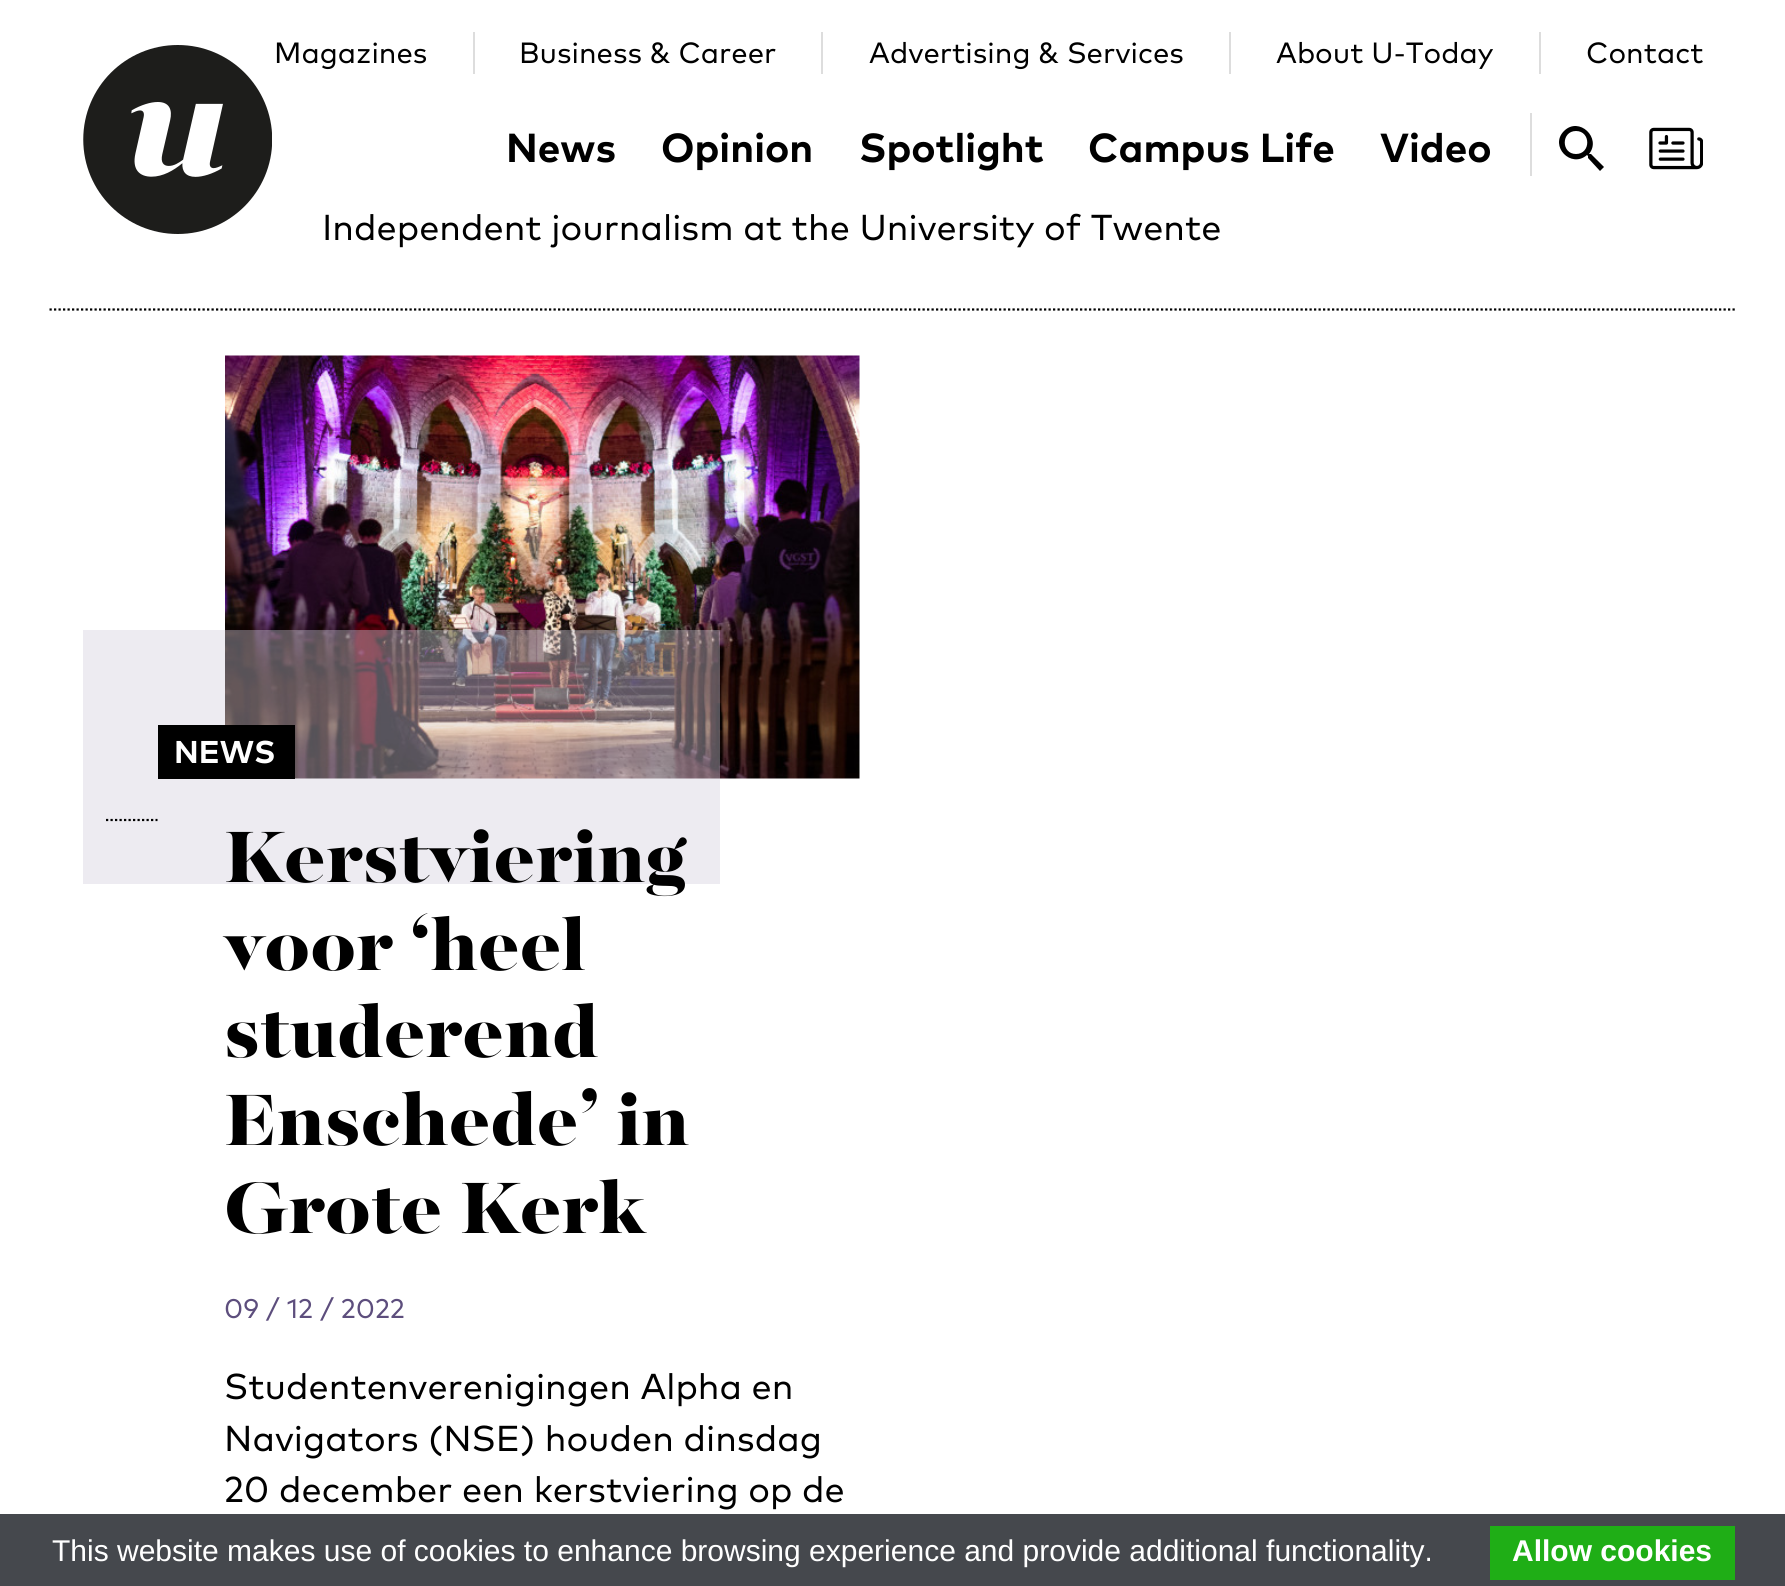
import math
import cairo


def paste(ctx, path, x, y, w, h):
	ctx.save()
	ctx.set_source_surface(cairo.ImageSurface.create_from_png(path), x, y)
	ctx.rectangle(x, y, w, h)
	ctx.fill()
	ctx.restore()

def draw(ctx):
	ctx.set_source_rgb(1, 1, 1)
	ctx.paint()
	ctx.new_path()
	ctx.move_to(49.5, 309.5)
	ctx.line_to(1737, 309.5)
	ctx.set_source_rgb(0, 0, 0)
	ctx.set_line_width(2.2)
	ctx.set_dash([2.25, 2.25])
	ctx.stroke()
	paste(ctx, 'media/1.png', 83, 45, 189, 189)
	ctx.select_font_face('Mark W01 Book')
	ctx.set_font_size(29.25)
	ctx.move_to(274, 63)
	ctx.show_text('Magazines')
	ctx.set_source_rgb(0.867, 0.867, 0.867)
	ctx.rectangle(473, 32, 2, 42)
	ctx.fill()
	ctx.set_source_rgb(0, 0, 0)
	ctx.move_to(519, 63)
	ctx.show_text('Business & Career')
	ctx.set_source_rgb(0.867, 0.867, 0.867)
	ctx.rectangle(821, 32, 2, 42)
	ctx.fill()
	ctx.set_source_rgb(0, 0, 0)
	ctx.move_to(869, 63)
	ctx.show_text('Advertising & Services')
	ctx.set_source_rgb(0.867, 0.867, 0.867)
	ctx.rectangle(1229, 32, 2, 42)
	ctx.fill()
	ctx.set_source_rgb(0, 0, 0)
	ctx.move_to(1276, 63)
	ctx.show_text('About U-Today')
	ctx.set_source_rgb(0.867, 0.867, 0.867)
	ctx.rectangle(1539, 32, 2, 42)
	ctx.fill()
	ctx.set_source_rgb(0, 0, 0)
	ctx.move_to(1586, 63)
	ctx.show_text('Contact')
	ctx.select_font_face('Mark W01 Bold', cairo.FONT_SLANT_NORMAL, cairo.FONT_WEIGHT_BOLD)
	ctx.set_font_size(40.5)
	for x, y, s in [
		(506, 162, 'News'),
		(661, 162, 'Opinion'),
		(859, 162, 'Spotlight'),
		(1088, 162, 'Campus Life'),
		(1380, 162, 'Video'),
	]:
		ctx.move_to(x, y)
		ctx.show_text(s)
	ctx.set_source_rgb(0.867, 0.867, 0.867)
	ctx.rectangle(1530, 113, 2, 63)
	ctx.fill()
	ctx.set_source_rgb(0, 0, 0)
	ctx.new_path()
	ctx.move_to(1576, 154)
	ctx.curve_to(1561, 154, 1561, 131, 1576, 131)
	ctx.curve_to(1591, 131, 1591, 154, 1576, 154)
	ctx.close_path()
	ctx.move_to(1591, 154)
	ctx.line_to(1589, 154)
	ctx.curve_to(1602, 138, 1579, 116, 1564, 131)
	ctx.curve_to(1549, 146, 1571, 169, 1587, 155)
	ctx.line_to(1588, 156)
	ctx.line_to(1588, 158)
	ctx.line_to(1600, 171)
	ctx.line_to(1604, 167)
	ctx.close_path()
	ctx.fill()
	paste(ctx, 'media/2.png', 1649, 127, 54, 43)
	ctx.select_font_face('Mark W01 Book')
	ctx.set_font_size(36)
	ctx.move_to(322, 240)
	ctx.show_text('Independent journalism at the University of Twente')
	paste(ctx, 'media/3.png', 225, 355, 635, 424)
	ctx.set_source_rgba(0.827, 0.804, 0.863, 0.4)
	ctx.rectangle(83, 630, 637, 254)
	ctx.fill()
	ctx.set_source_rgb(0, 0, 0)
	ctx.rectangle(158, 725, 137, 54)
	ctx.fill()
	ctx.select_font_face('Mark W01 Bold', cairo.FONT_SLANT_NORMAL, cairo.FONT_WEIGHT_BOLD)
	ctx.set_font_size(31.5)
	ctx.set_source_rgb(1, 1, 1)
	ctx.move_to(174, 763)
	ctx.show_text('NEWS')
	ctx.new_path()
	ctx.move_to(106, 820)
	ctx.line_to(157.5, 820)
	ctx.set_source_rgb(0, 0, 0)
	ctx.stroke()
	ctx.select_font_face('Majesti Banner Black')
	ctx.set_font_size(81)
	for x, y, s in [
		(224, 882, 'Kerstviering'),
		(224, 970, 'voor ‘heel'),
		(224, 1057, 'studerend'),
		(224, 1145, 'Enschede’ in'),
		(224, 1233, 'Grote Kerk'),
	]:
		ctx.move_to(x, y)
		ctx.show_text(s)
	ctx.select_font_face('Mark W01 Book')
	ctx.set_font_size(27)
	ctx.set_source_rgb(0.365, 0.306, 0.49)
	ctx.move_to(224, 1318)
	ctx.show_text('09 / 12 / 2022')
	ctx.set_font_size(36)
	ctx.set_source_rgb(0, 0, 0)
	for x, y, s in [
		(224, 1399, 'Studentenverenigingen Alpha en'),
		(224, 1451, 'Navigators (NSE) houden dinsdag'),
		(224, 1502, '20 december een kerstviering op de'),
	]:
		ctx.move_to(x, y)
		ctx.show_text(s)
	ctx.set_source_rgb(0.271, 0.282, 0.302)
	ctx.rectangle(0, 1514, 1785, 72)
	ctx.fill()
	ctx.select_font_face('Liberation Sans')
	ctx.set_font_size(30)
	ctx.set_source_rgb(1, 1, 1)
	ctx.move_to(52, 1561)
	ctx.show_text('This website makes use of cookies to enhance browsing experience and provide additional functionality.')
	ctx.set_source_rgb(0.122, 0.682, 0.086)
	ctx.rectangle(1490, 1526, 245, 54)
	ctx.fill()
	ctx.select_font_face('Liberation Sans', cairo.FONT_SLANT_NORMAL, cairo.FONT_WEIGHT_BOLD)
	ctx.set_source_rgb(1, 1, 1)
	ctx.move_to(1512, 1561)
	ctx.show_text('Allow cookies')


surface = cairo.ImageSurface(cairo.FORMAT_RGB24, 1785, 1586)
ctx = cairo.Context(surface)
options = cairo.FontOptions()
options.set_hint_metrics(cairo.HINT_METRICS_OFF)
options.set_hint_style(cairo.HINT_STYLE_NONE)
ctx.set_font_options(options)
ctx.set_miter_limit(4)
draw(ctx)
surface.write_to_png('image.png')
